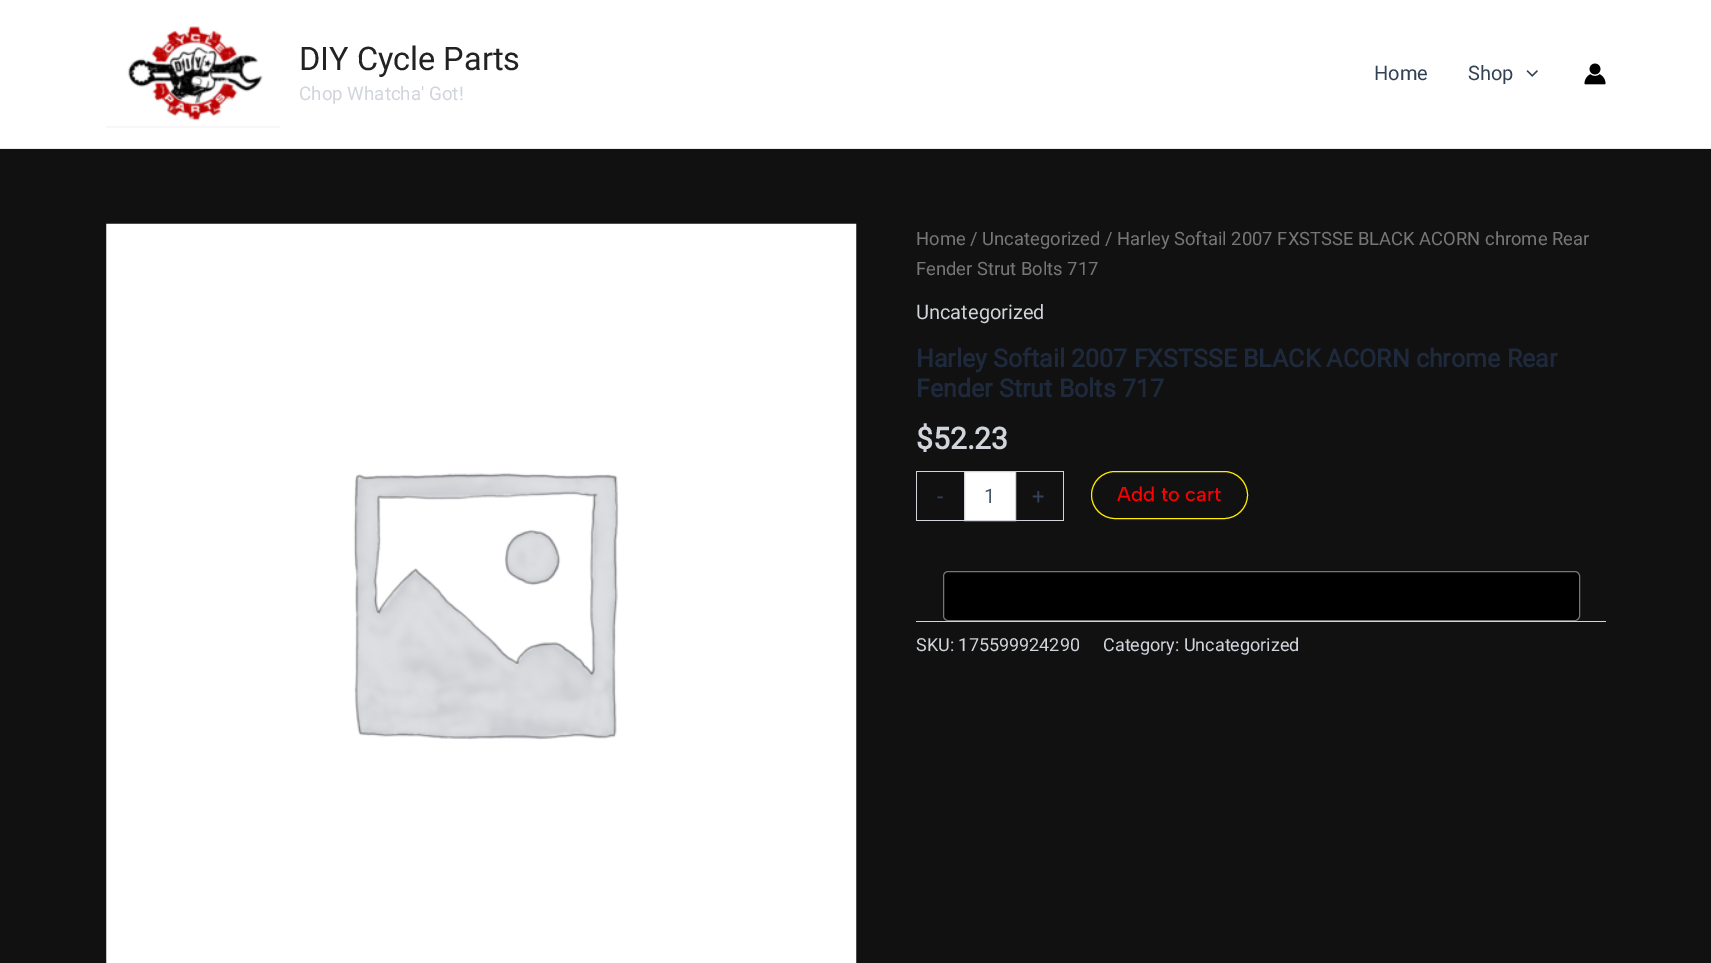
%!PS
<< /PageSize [1711 963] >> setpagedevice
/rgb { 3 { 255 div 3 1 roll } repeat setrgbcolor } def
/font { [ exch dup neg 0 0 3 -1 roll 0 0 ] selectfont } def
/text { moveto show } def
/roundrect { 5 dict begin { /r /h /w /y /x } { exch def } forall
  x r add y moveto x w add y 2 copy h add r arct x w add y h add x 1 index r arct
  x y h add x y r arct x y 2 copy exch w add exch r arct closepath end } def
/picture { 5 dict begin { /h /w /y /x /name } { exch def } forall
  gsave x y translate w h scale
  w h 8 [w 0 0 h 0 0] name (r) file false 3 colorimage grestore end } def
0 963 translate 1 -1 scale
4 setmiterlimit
17 17 17 rgb
0 0 1711 963 rectfill
255 255 255 rgb
0 0 1711 148 rectfill
234 234 234 rgb
0 148 1711 1 rectfill
(img_01.rgb) 106 26 174 102 picture
(img_02.rgb) 1526 70 12 7 picture
(img_03.rgb) 1584 63 22 22 picture
(img_04.rgb) 106 223 751 740 picture
209 213 219 rgb
916 471 48 1 rectfill
916 520 48 1 rectfill
916 471 1 50 rectfill
255 255 255 rgb
964.5 471.5 moveto 51 0 rlineto 0 49 rlineto -51 0 rlineto closepath gsave fill grestore
209 213 219 rgb
stroke
1016 471 48 1 rectfill
1063 471 1 50 rectfill
1016 520 48 1 rectfill
255 238 0 rgb
1091.5 471.5 156 47 23.5 roundrect stroke
0 0 0 rgb
943.5 571.5 636 49 4.5 roundrect gsave fill grestore
117 117 117 rgb
stroke
209 213 219 rgb
916 621 690 1 rectfill
/Roboto-Regular 32.5 font
34 34 34 rgb
(DIY Cycle Parts) 299 70 text
/Roboto-Regular 18.75 font
209 213 219 rgb
(Chop Whatcha' Got!) 299 100 text
/Roboto-Regular 20 font
51 65 85 rgb
(Home) 1374 80 text
(Shop) 1468 80 text
/Roboto-Regular 18.4 font
119 119 119 rgb
(Home / Uncategorized / Harley Softail 2007 FXSTSSE BLACK ACORN chrome Rear) 916 245 text
(Fender Strut Bolts 717) 916 275 text
/Roboto-Regular 20 font
209 213 219 rgb
(Uncategorized) 916 319 text
/Roboto-Bold 25 font
30 41 59 rgb
(Harley Softail 2007 FXSTSSE BLACK ACORN chrome Rear) 916 367 text
(Fender Strut Bolts 717) 916 397 text
/Roboto-Bold 30 font
209 213 219 rgb
($52.23) 916 449 text
/Roboto-Regular 22 font
51 65 85 rgb
(-) 937 504 text
/Roboto-Regular 20 font
71 85 105 rgb
(1) 984 503 text
/Roboto-Regular 22 font
51 65 85 rgb
(+) 1032 504 text
/AlbertSans-Medium 20 font
255 0 0 rgb
(Add to cart) 1117 501 text
/Roboto-Regular 18 font
209 213 219 rgb
(SKU: 175599924290) 916 651 text
(Category: Uncategorized) 1103 651 text
showpage
